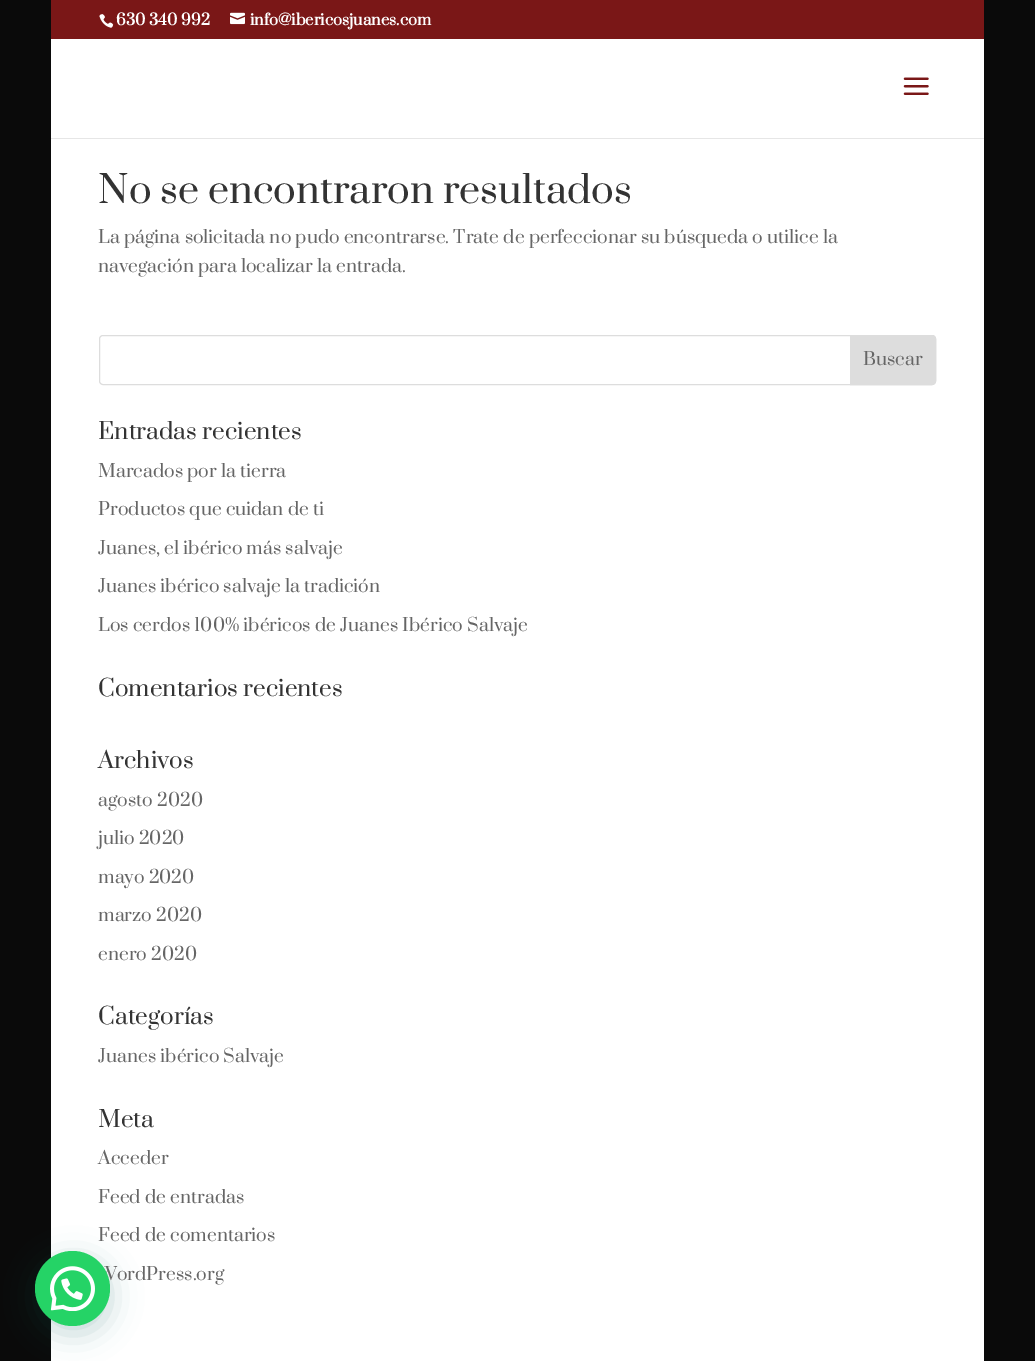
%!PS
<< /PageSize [1035 1361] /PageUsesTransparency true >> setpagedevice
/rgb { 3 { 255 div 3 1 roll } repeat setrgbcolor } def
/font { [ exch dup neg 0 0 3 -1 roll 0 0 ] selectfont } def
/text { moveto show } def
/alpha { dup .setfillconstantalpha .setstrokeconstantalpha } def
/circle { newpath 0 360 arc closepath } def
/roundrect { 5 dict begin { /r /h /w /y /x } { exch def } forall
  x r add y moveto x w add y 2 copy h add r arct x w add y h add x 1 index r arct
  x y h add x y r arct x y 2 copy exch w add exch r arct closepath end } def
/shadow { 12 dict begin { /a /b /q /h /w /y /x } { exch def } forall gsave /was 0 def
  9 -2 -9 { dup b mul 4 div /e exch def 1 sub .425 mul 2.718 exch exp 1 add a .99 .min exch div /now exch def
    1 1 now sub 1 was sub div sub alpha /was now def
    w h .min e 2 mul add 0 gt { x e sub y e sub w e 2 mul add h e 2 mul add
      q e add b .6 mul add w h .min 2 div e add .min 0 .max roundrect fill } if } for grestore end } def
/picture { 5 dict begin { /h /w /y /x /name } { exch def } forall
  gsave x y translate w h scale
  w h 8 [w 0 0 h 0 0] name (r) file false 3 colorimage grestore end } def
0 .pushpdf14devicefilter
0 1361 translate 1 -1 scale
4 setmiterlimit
10 10 10 rgb
0 0 1035 1361 rectfill
255 255 255 rgb
51 139 933 1222 rectfill
7 94 84 rgb
36 1259 75 75 37.5 15 0.24 shadow
122 23 23 rgb
51 0 933 39 rectfill
(img_02.rgb) 99 14 15 14 picture
(img_03.rgb) 230 12 15 13 picture
230 230 230 rgb
51 39 moveto 0 100 rlineto 933 0 rlineto 0 -100 rlineto 0 99 rlineto -933 0 rlineto closepath fill
255 255 255 rgb
51 39 933 99 rectfill
(img_04.rgb) 903 77 26 18 picture
221 221 221 rgb
99.5 335.5 836 49 3.5 roundrect stroke
850.5 335.5 moveto 81.5 0 rlineto 2 0 3.5 1.5 3.5 3.5 rcurveto 0 42 rlineto 0 2 -1.5 3.5 -3.5 3.5 rcurveto -81.5 0 rlineto closepath gsave fill grestore
stroke
/Prata-Bold 15 font
255 255 255 rgb
(630 340 992) 116 25 text
(info@ibericosjuanes.com) 250 25 text
/Prata-Regular 37.5 font
51 51 51 rgb
(No se encontraron resultados) 98 203 text
/Prata-Regular 17.5 font
102 102 102 rgb
(La página solicitada no pudo encontrarse. Trate de perfeccionar su búsqueda o utilice la) 98 243 text
(navegación para localizar la entrada.) 98 272 text
(Buscar) 863 365 text
/Prata-Regular 22.5 font
51 51 51 rgb
(Entradas recientes) 98 439 text
/Prata-Regular 17.5 font
102 102 102 rgb
(Marcados por la tierra) 98 477 text
(Productos que cuidan de ti) 98 515 text
(Juanes, el ibérico más salvaje) 98 554 text
(Juanes ibérico salvaje la tradición) 98 592 text
(Los cerdos 100% ibéricos de Juanes Ibérico Salvaje) 98 631 text
/Prata-Regular 22.5 font
51 51 51 rgb
(Comentarios recientes) 98 696 text
(Archivos) 98 768 text
/Prata-Regular 17.5 font
102 102 102 rgb
(agosto 2020) 98 806 text
(julio 2020) 98 844 text
(mayo 2020) 98 883 text
(marzo 2020) 98 921 text
(enero 2020) 98 960 text
/Prata-Regular 22.5 font
51 51 51 rgb
(Categorías) 98 1024 text
/Prata-Regular 17.5 font
102 102 102 rgb
(Juanes ibérico Salvaje) 98 1062 text
/Prata-Regular 22.5 font
51 51 51 rgb
(Meta) 98 1127 text
/Prata-Regular 17.5 font
102 102 102 rgb
(Acceder) 98 1164 text
(Feed de entradas) 98 1203 text
(Feed de comentarios) 98 1241 text
(WordPress.org) 98 1280 text
37 211 102 rgb
72.5 1288.5 37.5 circle fill
(img_01.rgb) 50 1266 45 45 picture
.poppdf14devicefilter showpage
